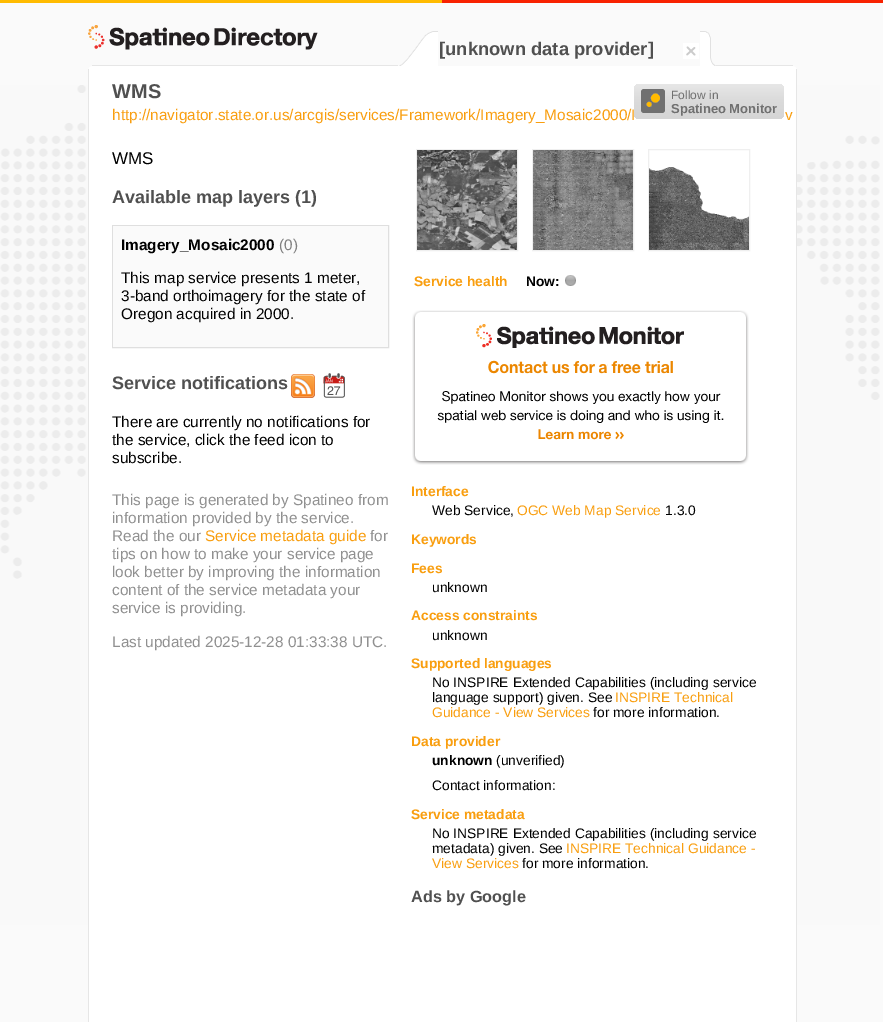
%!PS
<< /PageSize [883 1022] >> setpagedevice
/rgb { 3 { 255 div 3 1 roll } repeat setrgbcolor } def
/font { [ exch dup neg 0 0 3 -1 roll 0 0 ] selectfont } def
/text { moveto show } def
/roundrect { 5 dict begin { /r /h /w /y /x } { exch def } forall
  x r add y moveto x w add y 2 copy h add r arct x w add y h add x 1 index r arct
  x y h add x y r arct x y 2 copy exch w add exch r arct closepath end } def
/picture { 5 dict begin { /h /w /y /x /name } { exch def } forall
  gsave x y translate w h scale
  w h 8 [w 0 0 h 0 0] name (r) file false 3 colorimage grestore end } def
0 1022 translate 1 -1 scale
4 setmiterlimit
250 250 250 rgb
0 0 883 1022 rectfill
255 187 0 rgb
0 0 442 3 rectfill
248 34 0 rgb
442 0 441 3 rectfill
(img_01.rgb) 0 85 880 840 picture
(img_02.rgb) 88 25 230 25 picture
(img_03.rgb) 399 31 39 35 picture
(img_04.rgb) 683 43 16 16 picture
(img_05.rgb) 700 31 16 35 picture
230 230 230 rgb
92 65 306 1 rectfill
716 65 77 1 rectfill
255 255 255 rgb
93 66 moveto 699 0 rlineto 3 0 5 2 5 5 rcurveto 0 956 rlineto -709 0 rlineto 0 -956 rlineto 0 -3 2 -5 5 -5 rcurveto closepath fill
230 230 230 rgb
796 69 1 953 rectfill
88 69 1 953 rectfill
223 223 223 rgb
112.5 225.5 276 122 rectstroke
250 250 250 rgb
113 226 275 121 rectfill
(img_06.rgb) 291 374 24 24 picture
(img_07.rgb) 323 373 22 25 picture
239 239 239 rgb
416.5 149.5 101 101 rectstroke
532.5 149.5 101 101 rectstroke
648.5 149.5 101 101 rectstroke
(img_08.rgb) 417 150 100 100 picture
(img_09.rgb) 533 150 100 100 picture
(img_10.rgb) 649 167 100 83 picture
(img_11.rgb) 565 275 11 11 picture
(img_12.rgb) 412 310 337 155 picture
/LiberationSans-Bold 18.4 font
80 80 80 rgb
([unknown data provider]) 439 55 text
/LiberationSans-Bold 20 font
(WMS) 112 98 text
/LiberationSans-Regular 15.35 font
249 158 15 rgb
(http://navigator.state.or.us/arcgis/services/Framework/Imagery_Mosaic2000/I) 112 120 text
(v) 785 120 text
/LiberationSans-Regular 17 font
0 0 0 rgb
(WMS) 112 164 text
/LiberationSans-Bold 18 font
80 80 80 rgb
(Available map layers \(1\)) 112 203 text
/LiberationSans-Bold 15.35 font
0 0 0 rgb
(Imagery_Mosaic2000) 121 250 text
/LiberationSans-Regular 15.35 font
128 128 128 rgb
(\(0\)) 279 250 text
0 0 0 rgb
(This map service presents 1 meter,) 121 283 text
(3-band orthoimagery for the state of) 121 301 text
(Oregon acquired in 2000.) 121 319 text
/LiberationSans-Bold 18 font
80 80 80 rgb
(Service notifications) 112 389 text
/LiberationSans-Regular 15.35 font
0 0 0 rgb
(There are currently no notifications for) 112 427 text
(the service, click the feed icon to) 112 445 text
(subscribe.) 112 463 text
144 144 144 rgb
(This page is generated by Spatineo from) 112 505 text
(information provided by the service.) 112 523 text
(Read the our) 112 541 text
249 158 15 rgb
(Service metadata guide) 205 541 text
144 144 144 rgb
(for) 370 541 text
(tips on how to make your service page) 112 559 text
(look better by improving the information) 112 577 text
(content of the service metadata your) 112 595 text
(service is providing.) 112 613 text
(Last updated 2025-12-28 01:33:38 UTC.) 112 647 text
/LiberationSans-Bold 13.8 font
249 158 15 rgb
(Service health) 414 286 text
0 0 0 rgb
(Now:) 526 286 text
249 158 15 rgb
(Interface) 411 496 text
/LiberationSans-Regular 13.8 font
0 0 0 rgb
(Web Service,) 432 515 text
249 158 15 rgb
(OGC Web Map Service) 517 515 text
0 0 0 rgb
(1.3.0) 665 515 text
/LiberationSans-Bold 13.8 font
249 158 15 rgb
(Keywords) 411 544 text
(Fees) 411 573 text
/LiberationSans-Regular 13.8 font
0 0 0 rgb
(unknown) 432 592 text
/LiberationSans-Bold 13.8 font
249 158 15 rgb
(Access constraints) 411 620 text
/LiberationSans-Regular 13.8 font
0 0 0 rgb
(unknown) 432 640 text
/LiberationSans-Bold 13.8 font
249 158 15 rgb
(Supported languages) 411 668 text
/LiberationSans-Regular 13.8 font
0 0 0 rgb
(No INSPIRE Extended Capabilities \(including service) 432 687 text
(language support\) given. See) 432 702 text
249 158 15 rgb
(INSPIRE Technical) 615 702 text
(Guidance - View Services) 432 717 text
0 0 0 rgb
(for more information.) 593 717 text
/LiberationSans-Bold 13.8 font
249 158 15 rgb
(Data provider) 411 746 text
0 0 0 rgb
(unknown) 432 765 text
/LiberationSans-Regular 13.8 font
(\(unverified\)) 496 765 text
(Contact information:) 432 790 text
/LiberationSans-Bold 13.8 font
249 158 15 rgb
(Service metadata) 411 819 text
/LiberationSans-Regular 13.8 font
0 0 0 rgb
(No INSPIRE Extended Capabilities \(including service) 432 838 text
(metadata\) given. See) 432 853 text
249 158 15 rgb
(INSPIRE Technical Guidance -) 566 853 text
(View Services) 432 868 text
0 0 0 rgb
(for more information.) 522 868 text
/LiberationSans-Bold 16.25 font
80 80 80 rgb
(Ads by Google) 411 902 text
gsave 634 84 150 35 6 roundrect clip newpath
<< /ShadingType 2 /ColorSpace /DeviceRGB /Coords [709 84 709 119] /Extend [true true] /Function << /FunctionType 3 /Domain [0 1] /Functions [<< /FunctionType 2 /Domain [0 1] /C0 [0.906 0.906 0.906] /C1 [0.855 0.855 0.855] /N 1 >> << /FunctionType 2 /Domain [0 1] /C0 [0.855 0.855 0.855] /C1 [0.835 0.835 0.835] /N 1 >>] /Bounds [0.5] /Encode [0 1 0 1] >> >> shfill grestore
112 112 112 rgb
641 89 24 24 3 roundrect fill
(img_13.rgb) 646 93 14 14 picture
/LiberationSans-Regular 12 font
(Follow in) 671 99 text
/LiberationSans-Bold 13 font
(Spatineo Monitor) 671 113 text
showpage
